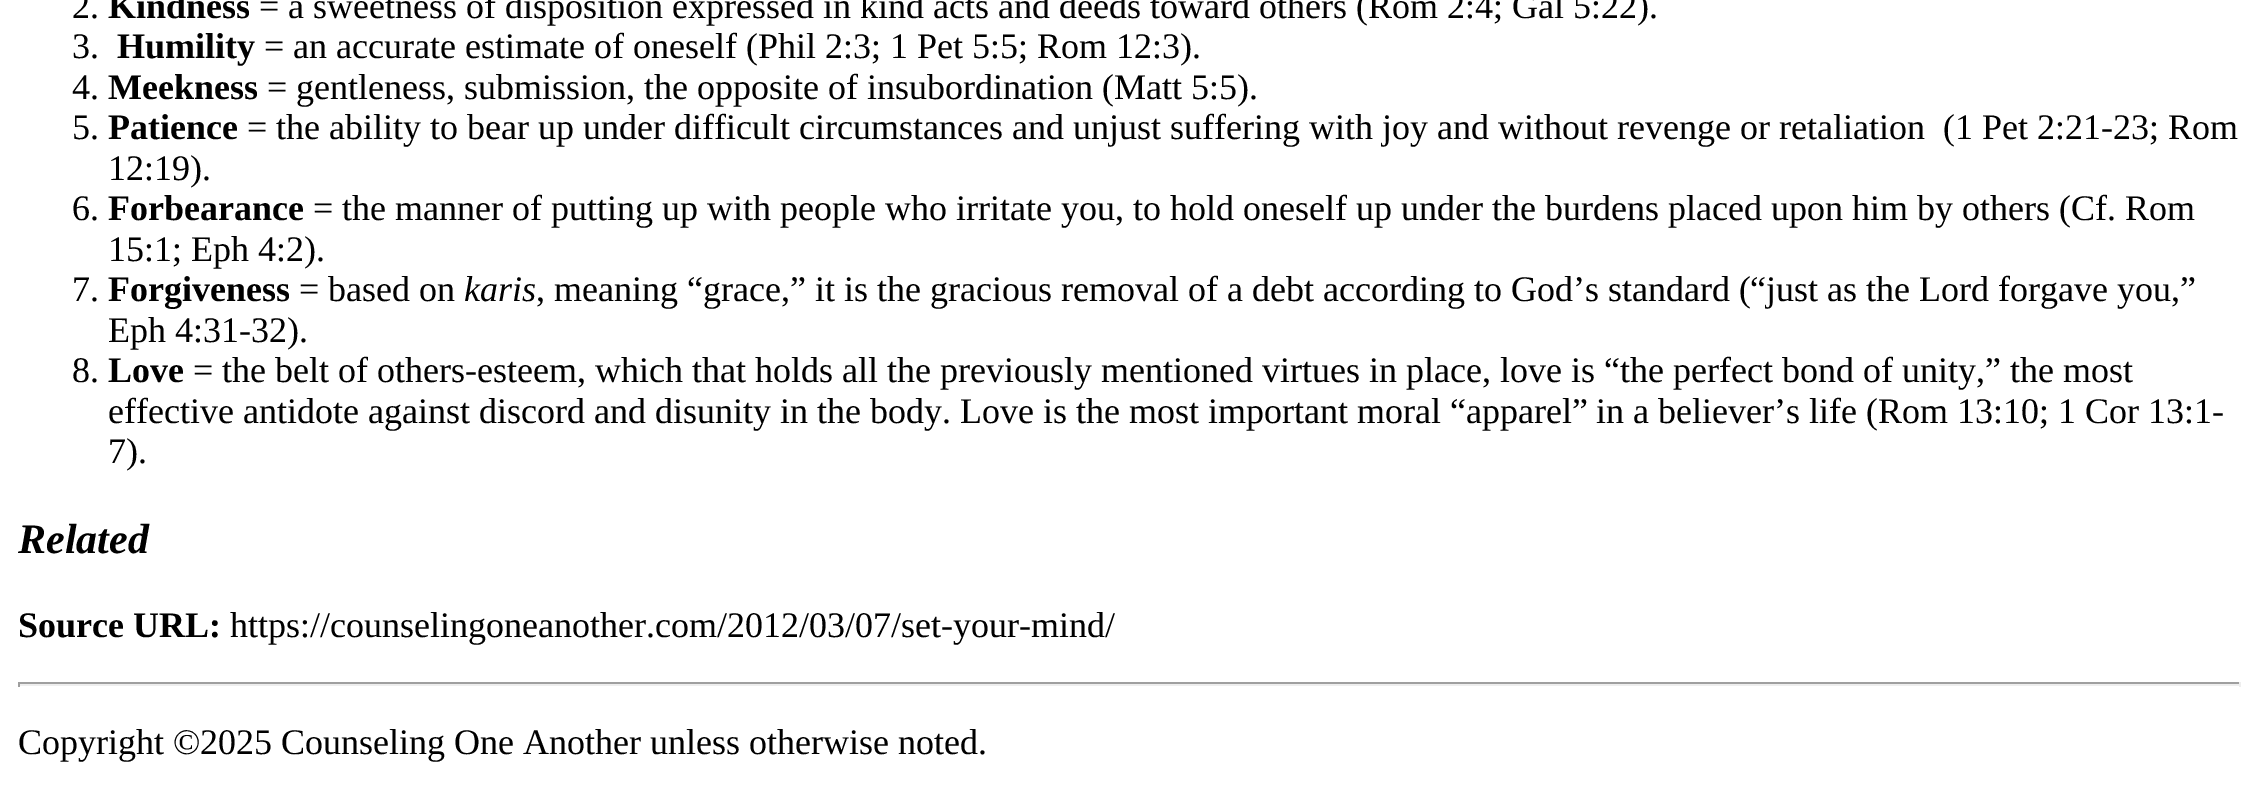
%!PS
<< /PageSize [2258 797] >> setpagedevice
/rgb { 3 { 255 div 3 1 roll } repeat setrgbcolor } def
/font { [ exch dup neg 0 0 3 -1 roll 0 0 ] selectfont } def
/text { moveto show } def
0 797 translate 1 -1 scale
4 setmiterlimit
255 255 255 rgb
0 0 2258 797 rectfill
159 159 159 rgb
18 682 2223 2 rectfill
238 238 238 rgb
2239 682 2 5 rectfill
18 684 2223 2 rectfill
159 159 159 rgb
18 682 2 5 rectfill
/LiberationSerif-Regular 36 font
0 0 0 rgb
(2.) 72 18 text
/LiberationSerif-Bold 36 font
(Kindness) 108 18 text
/LiberationSerif-Regular 36 font
(= a sweetness of disposition expressed in kind acts and deeds toward others \(Rom 2:4; Gal 5:22\).) 259 18 text
(3.) 72 58 text
/LiberationSerif-Bold 36 font
(Humility) 117 58 text
/LiberationSerif-Regular 36 font
(= an accurate estimate of oneself \(Phil 2:3; 1 Pet 5:5; Rom 12:3\).) 264 58 text
(4.) 72 99 text
/LiberationSerif-Bold 36 font
(Meekness) 108 99 text
/LiberationSerif-Regular 36 font
(= gentleness, submission, the opposite of insubordination \(Matt 5:5\).) 267 99 text
(5.) 72 139 text
/LiberationSerif-Bold 36 font
(Patience) 108 139 text
/LiberationSerif-Regular 36 font
(= the ability to bear up under difficult circumstances and unjust suffering with joy and without revenge or retaliation  \(1 Pet 2:21-23; Rom) 247 139 text
(12:19\).) 108 180 text
(6.) 72 220 text
/LiberationSerif-Bold 36 font
(Forbearance) 108 220 text
/LiberationSerif-Regular 36 font
(= the manner of putting up with people who irritate you, to hold oneself up under the burdens placed upon him by others \(Cf. Rom) 313 220 text
(15:1; Eph 4:2\).) 108 261 text
(7.) 72 301 text
/LiberationSerif-Bold 36 font
(Forgiveness) 108 301 text
/LiberationSerif-Regular 36 font
(= based on) 299 301 text
/LiberationSerif-Italic 36 font
(karis) 464 301 text
/LiberationSerif-Regular 36 font
(, meaning “grace,” it is the gracious removal of a debt according to God’s standard \(“just as the Lord forgave you,”) 536 301 text
(Eph 4:31-32\).) 108 342 text
(8.) 72 382 text
/LiberationSerif-Bold 36 font
(Love) 108 382 text
/LiberationSerif-Regular 36 font
(= the belt of others-esteem, which that holds all the previously mentioned virtues in place, love is “the perfect bond of unity,” the most) 193 382 text
(effective antidote against discord and disunity in the body. Love is the most important moral “apparel” in a believer’s life \(Rom 13:10; 1 Cor 13:1-) 108 423 text
(7\).) 108 463 text
/LiberationSerif-BoldItalic 42 font
(Related) 18 553 text
/LiberationSerif-Bold 36 font
(Source URL:) 18 637 text
/LiberationSerif-Regular 36 font
(https://counselingoneanother.com/2012/03/07/set-your-mind/) 230 637 text
(Copyright ©2025 Counseling One Another unless otherwise noted.) 18 754 text
showpage
